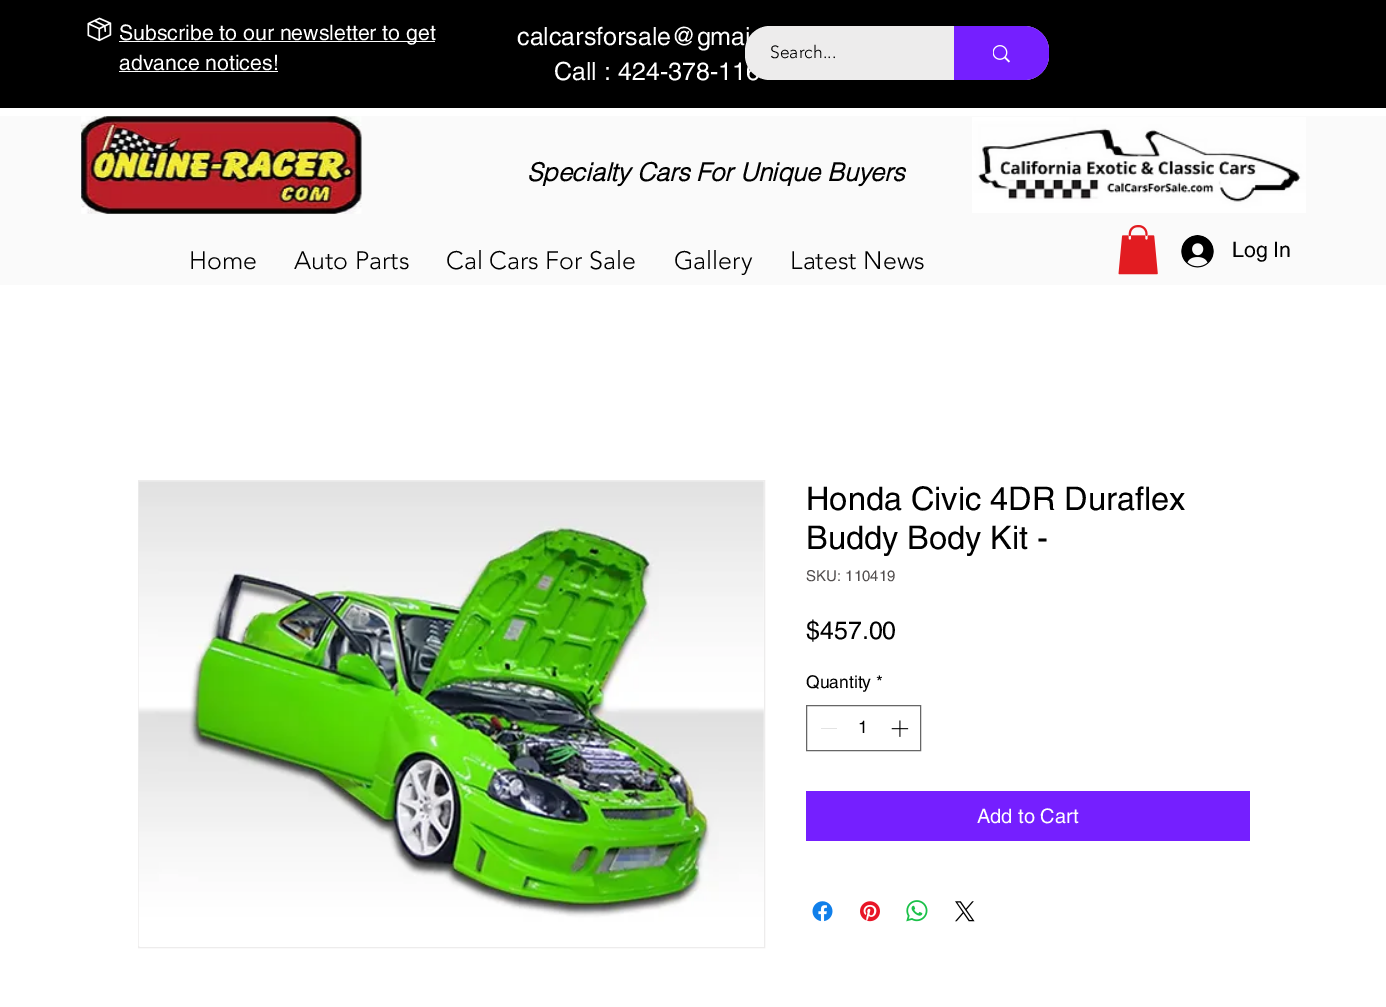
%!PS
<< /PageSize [1386 1007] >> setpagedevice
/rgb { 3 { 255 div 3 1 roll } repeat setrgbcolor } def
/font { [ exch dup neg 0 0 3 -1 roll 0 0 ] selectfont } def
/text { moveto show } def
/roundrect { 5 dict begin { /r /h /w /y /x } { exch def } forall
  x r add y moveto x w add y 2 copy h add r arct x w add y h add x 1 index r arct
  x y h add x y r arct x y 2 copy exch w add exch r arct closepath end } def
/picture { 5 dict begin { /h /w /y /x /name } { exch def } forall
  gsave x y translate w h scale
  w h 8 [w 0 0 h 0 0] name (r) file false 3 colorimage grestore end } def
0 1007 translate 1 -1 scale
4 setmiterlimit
255 255 255 rgb
0 0 1386 1007 rectfill
0 0 0 rgb
0 0 1386 108 rectfill
(img_01.rgb) 87 17 25 25 picture
255 255 255 rgb
119 41 316 1 rectfill
119 71 159 1 rectfill
250 250 250 rgb
0 116 1386 169 rectfill
(img_03.rgb) 81 116 281 98 picture
(img_04.rgb) 972 117 334 96 picture
(img_05.rgb) 1118 225 40 50 picture
(img_06.rgb) 1181 235 33 33 picture
237 236 236 rgb
138.5 480.5 626 467 rectstroke
(img_07.rgb) 138 481 626 465 picture
102 102 102 rgb
806.5 705.5 114 45 rectstroke
227 227 227 rgb
821 728 16 1 rectfill
(img_08.rgb) 891 720 18 17 picture
117 31 255 rgb
806 791 444 50 rectfill
(img_09.rgb) 812 901 21 21 picture
(img_10.rgb) 860 901 20 21 picture
(img_11.rgb) 906 900 22 22 picture
(img_12.rgb) 955 901 20 21 picture
/helvetica-Regular 21.25 font
255 255 255 rgb
(Subscribe to our newsletter to get) 119 40 text
(advance notices!) 119 70 text
/helvetica-Regular 25 font
(calcarsforsale@gmai) 517 45 text
(Call : 424-378-116) 554 80 text
237 236 236 rgb
745 26 304 54 25 roundrect fill
/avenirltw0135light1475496-Light 17.5 font
0 0 0 rgb
(Search...) 770 58 text
117 31 255 rgb
954 26 moveto 70 0 rlineto 14 0 25 11 25 25 rcurveto 0 4 rlineto 0 14 -11 25 -25 25 rcurveto -70 0 rlineto closepath fill
(img_02.rgb) 993 45 17 18 picture
/helvetica-BoldItalic 25 font
0 0 0 rgb
(Specialty Cars For Unique Buyers) 527 181 text
/avenirltw0135light1475496-Light 25 font
(Home) 189 269 text
(Auto Parts) 294 269 text
(Cal Cars For Sale) 446 269 text
(Gallery) 674 269 text
(Latest News) 790 269 text
/helvetica-Regular 21.25 font
(Log In) 1232 257 text
/helvetica-Regular 32.5 font
(Honda Civic 4DR Duraflex) 806 510 text
(Buddy Body Kit -) 806 549 text
/helvetica-Regular 15 font
82 78 78 rgb
(SKU: 110419) 806 581 text
/helvetica-Regular 25 font
0 0 0 rgb
($457.00) 806 639 text
/helvetica-Regular 17.5 font
(Quantity *) 806 688 text
(1) 858 733 text
/helvetica-Regular 20 font
255 255 255 rgb
(Add to Cart) 977 823 text
showpage
